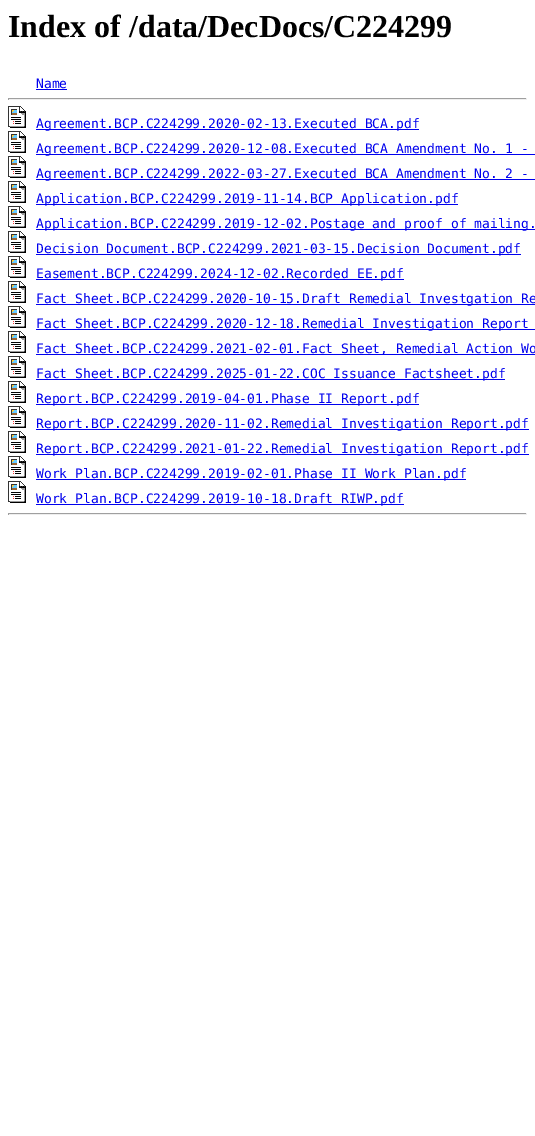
%!PS
<< /PageSize [535 1136] >> setpagedevice
/rgb { 3 { 255 div 3 1 roll } repeat setrgbcolor } def
/font { [ exch dup neg 0 0 3 -1 roll 0 0 ] selectfont } def
/text { moveto show } def
/picture { 5 dict begin { /h /w /y /x /name } { exch def } forall
  gsave x y translate w h scale
  w h 8 [w 0 0 h 0 0] name (r) file false 3 colorimage grestore end } def
0 1136 translate 1 -1 scale
4 setmiterlimit
255 255 255 rgb
0 0 535 1136 rectfill
0 0 238 rgb
36 89 31 1 rectfill
159 159 159 rgb
8 98 519 1 rectfill
238 238 238 rgb
526 98 1 2 rectfill
8 99 519 1 rectfill
159 159 159 rgb
8 98 1 2 rectfill
(img_01.rgb) 8 106 18 22 picture
0 0 238 rgb
36 129 383 1 rectfill
(img_01.rgb) 8 131 18 22 picture
36 154 499 1 rectfill
(img_01.rgb) 8 156 18 22 picture
36 179 499 1 rectfill
(img_01.rgb) 8 181 18 22 picture
36 204 422 1 rectfill
(img_01.rgb) 8 206 18 22 picture
36 229 499 1 rectfill
(img_01.rgb) 8 231 18 22 picture
36 254 485 1 rectfill
(img_01.rgb) 8 256 18 22 picture
36 279 368 1 rectfill
(img_01.rgb) 8 281 18 22 picture
36 304 499 1 rectfill
(img_01.rgb) 8 306 18 22 picture
36 329 499 1 rectfill
(img_01.rgb) 8 331 18 22 picture
36 354 499 1 rectfill
(img_01.rgb) 8 356 18 22 picture
36 379 469 1 rectfill
(img_01.rgb) 8 381 18 22 picture
36 404 383 1 rectfill
(img_01.rgb) 8 406 18 22 picture
36 429 493 1 rectfill
(img_01.rgb) 8 431 18 22 picture
36 454 493 1 rectfill
(img_01.rgb) 8 456 18 22 picture
36 479 430 1 rectfill
(img_01.rgb) 8 481 18 22 picture
36 504 368 1 rectfill
159 159 159 rgb
8 513 519 1 rectfill
238 238 238 rgb
526 513 1 2 rectfill
8 514 519 1 rectfill
159 159 159 rgb
8 513 1 2 rectfill
/LiberationSerif-Bold 32 font
0 0 0 rgb
(Index of /data/DecDocs/C224299) 8 37 text
/DejaVuSansMono-Regular 13 font
0 0 238 rgb
(Name) 36 88 text
(Agreement.BCP.C224299.2020-02-13.Executed BCA.pdf) 36 128 text
(Agreement.BCP.C224299.2020-12-08.Executed BCA Amendment No. 1 -) 36 153 text
(Agreement.BCP.C224299.2022-03-27.Executed BCA Amendment No. 2 -) 36 178 text
(Application.BCP.C224299.2019-11-14.BCP Application.pdf) 36 203 text
(Application.BCP.C224299.2019-12-02.Postage and proof of mailing.) 36 228 text
(Decision Document.BCP.C224299.2021-03-15.Decision Document.pdf) 36 253 text
(Easement.BCP.C224299.2024-12-02.Recorded EE.pdf) 36 278 text
(Fact Sheet.BCP.C224299.2020-10-15.Draft Remedial Investgation Re) 36 303 text
(Fact Sheet.BCP.C224299.2020-12-18.Remedial Investigation Report) 36 328 text
(Fact Sheet.BCP.C224299.2021-02-01.Fact Sheet, Remedial Action Wo) 36 353 text
(Fact Sheet.BCP.C224299.2025-01-22.COC Issuance Factsheet.pdf) 36 378 text
(Report.BCP.C224299.2019-04-01.Phase II Report.pdf) 36 403 text
(Report.BCP.C224299.2020-11-02.Remedial Investigation Report.pdf) 36 428 text
(Report.BCP.C224299.2021-01-22.Remedial Investigation Report.pdf) 36 453 text
(Work Plan.BCP.C224299.2019-02-01.Phase II Work Plan.pdf) 36 478 text
(Work Plan.BCP.C224299.2019-10-18.Draft RIWP.pdf) 36 503 text
showpage
